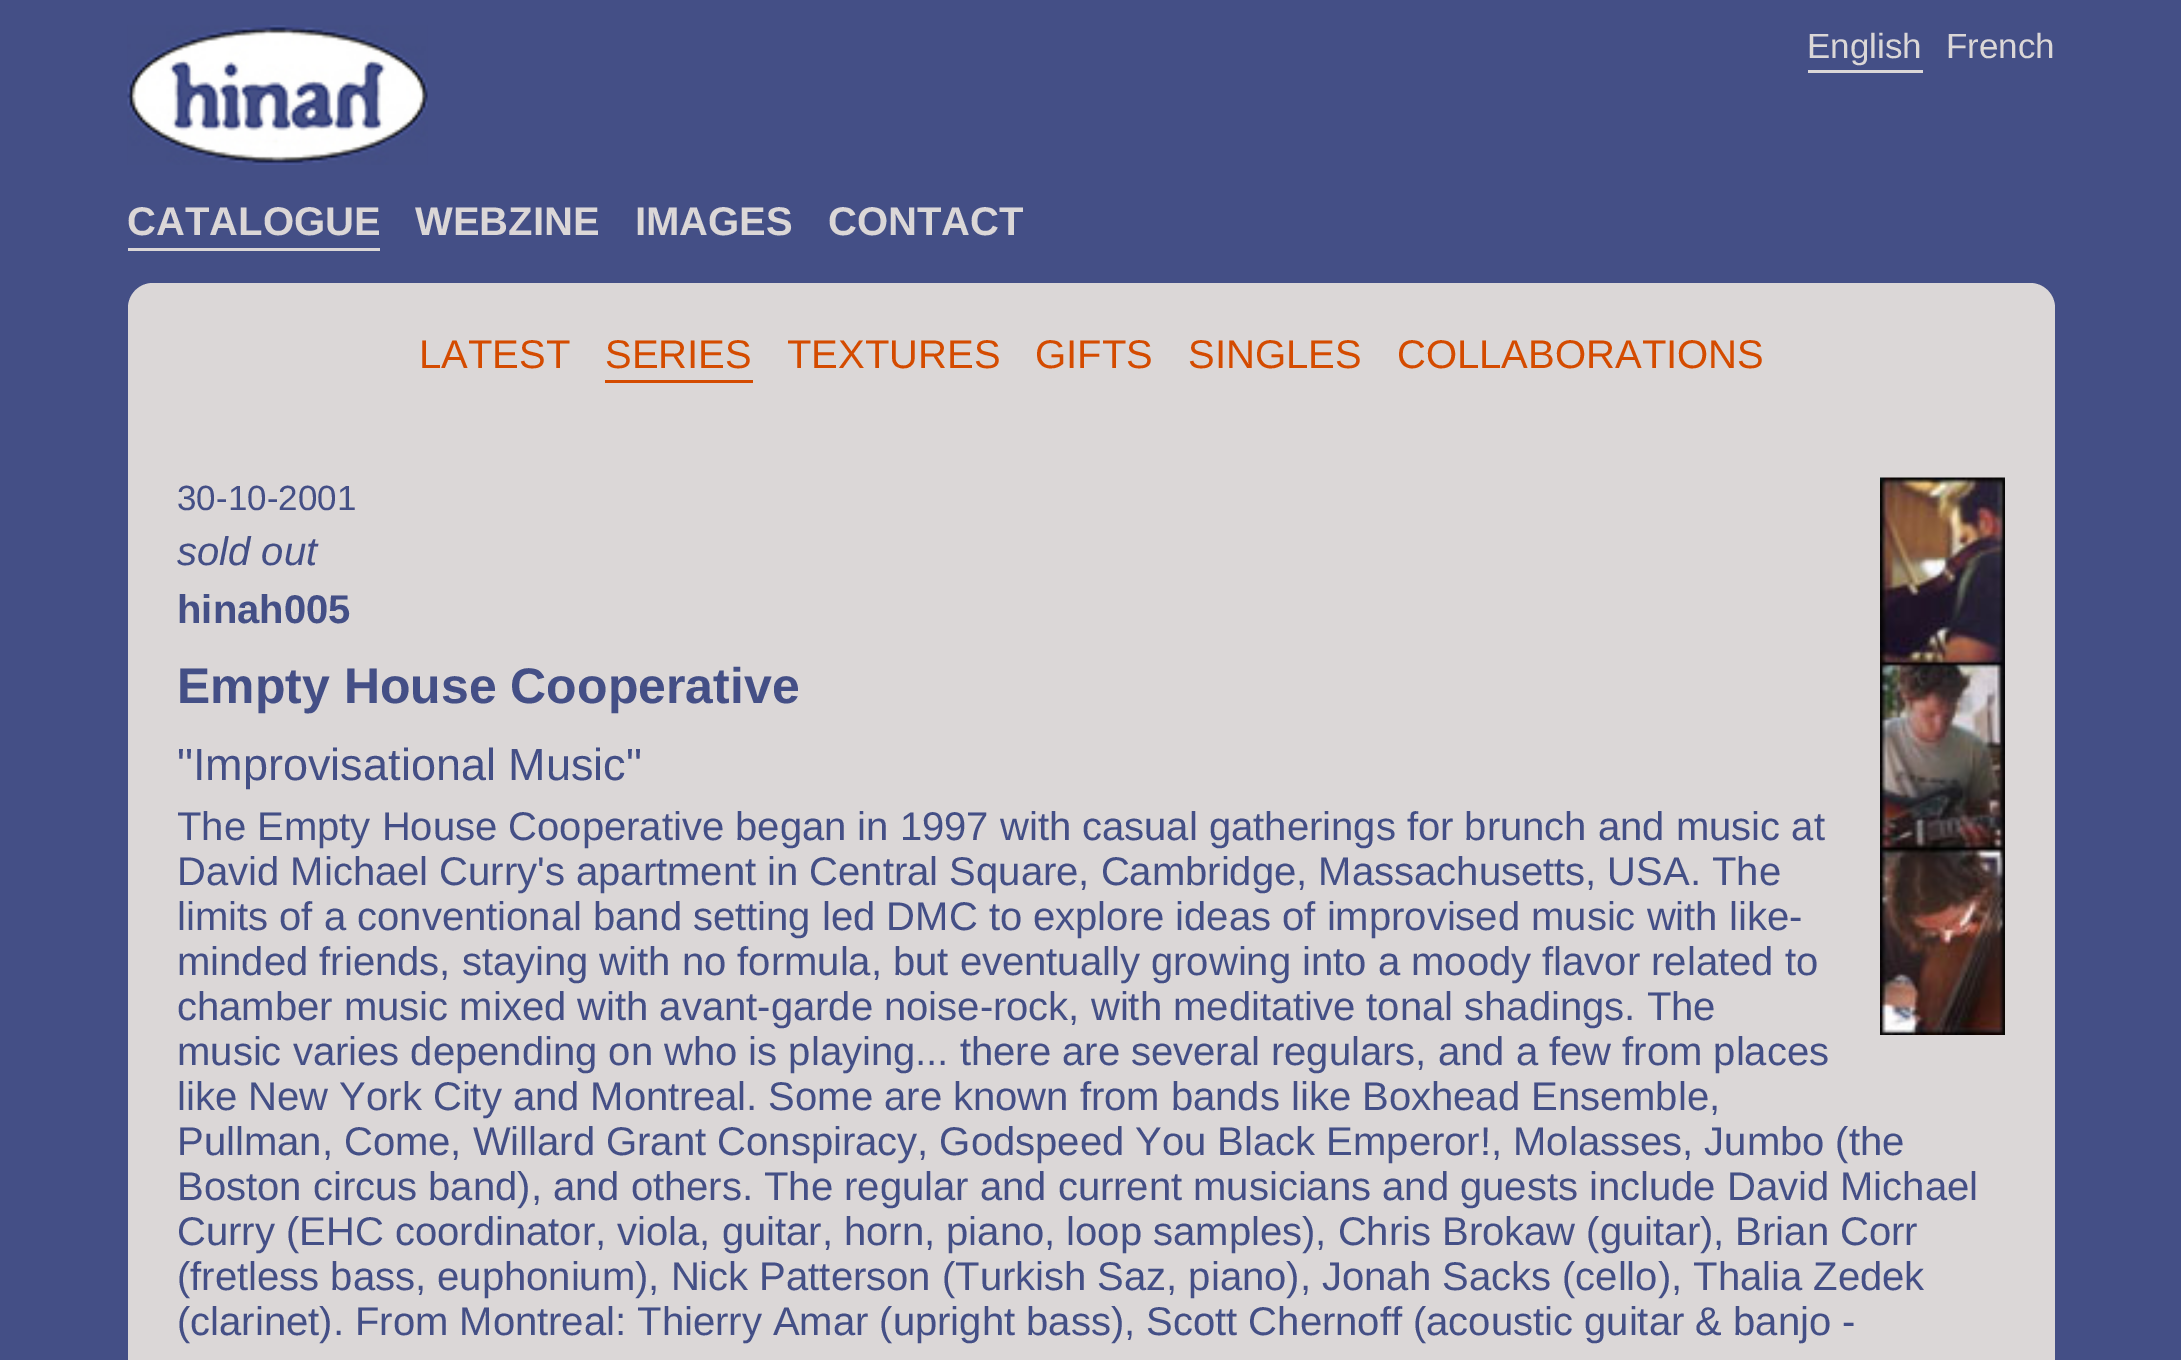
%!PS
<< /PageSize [2181 1360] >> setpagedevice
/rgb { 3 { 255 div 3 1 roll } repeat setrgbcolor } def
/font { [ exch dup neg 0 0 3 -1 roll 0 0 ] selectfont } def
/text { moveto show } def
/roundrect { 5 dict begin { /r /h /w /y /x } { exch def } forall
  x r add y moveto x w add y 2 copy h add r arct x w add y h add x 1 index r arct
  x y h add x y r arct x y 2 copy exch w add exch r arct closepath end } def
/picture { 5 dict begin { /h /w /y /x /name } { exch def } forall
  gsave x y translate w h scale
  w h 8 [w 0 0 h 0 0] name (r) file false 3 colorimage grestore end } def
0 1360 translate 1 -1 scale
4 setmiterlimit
68 79 134 rgb
0 0 2181 1360 rectfill
(img_01.rgb) 127 25 301 140 picture
219 215 215 rgb
1808 70 115 3 rectfill
128 248 252 3 rectfill
128 283 1927 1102 25 roundrect fill
212 75 0 rgb
605 380 148 3 rectfill
(img_02.rgb) 1880 477 125 558 picture
/LiberationSans-Regular 35 font
219 215 215 rgb
(English) 1807 58 text
(French) 1946 58 text
/LiberationSans-Bold 40 font
(CATALOGUE) 127 235 text
(WEBZINE) 415 235 text
(IMAGES) 635 235 text
(CONTACT) 828 235 text
/LiberationSans-Regular 40 font
212 75 0 rgb
(LATEST) 419 368 text
(SERIES) 605 368 text
(TEXTURES) 787 368 text
(GIFTS) 1035 368 text
(SINGLES) 1188 368 text
(COLLABORATIONS) 1397 368 text
/LiberationSans-Regular 35 font
68 79 134 rgb
(30-10-2001) 177 510 text
/LiberationSans-Italic 40 font
(sold out) 177 565 text
/LiberationSans-Bold 40 font
(hinah005) 177 623 text
/LiberationSans-Bold 50 font
(Empty House Cooperative) 177 703 text
/LiberationSans-Regular 45 font
("Improvisational Music") 177 780 text
/LiberationSans-Regular 40 font
(The Empty House Cooperative began in 1997 with casual gatherings for brunch and music at) 177 840 text
(David Michael Curry's apartment in Central Square, Cambridge, Massachusetts, USA. The) 177 885 text
(limits of a conventional band setting led DMC to explore ideas of improvised music with like-) 177 930 text
(minded friends, staying with no formula, but eventually growing into a moody flavor related to) 177 975 text
(chamber music mixed with avant-garde noise-rock, with meditative tonal shadings. The) 177 1020 text
(music varies depending on who is playing... there are several regulars, and a few from places) 177 1065 text
(like New York City and Montreal. Some are known from bands like Boxhead Ensemble,) 177 1110 text
(Pullman, Come, Willard Grant Conspiracy, Godspeed You Black Emperor!, Molasses, Jumbo \(the) 177 1155 text
(Boston circus band\), and others. The regular and current musicians and guests include David Michael) 177 1200 text
(Curry \(EHC coordinator, viola, guitar, horn, piano, loop samples\), Chris Brokaw \(guitar\), Brian Corr) 177 1245 text
(\(fretless bass, euphonium\), Nick Patterson \(Turkish Saz, piano\), Jonah Sacks \(cello\), Thalia Zedek) 177 1290 text
(\(clarinet\). From Montreal: Thierry Amar \(upright bass\), Scott Chernoff \(acoustic guitar & banjo -) 177 1335 text
showpage
